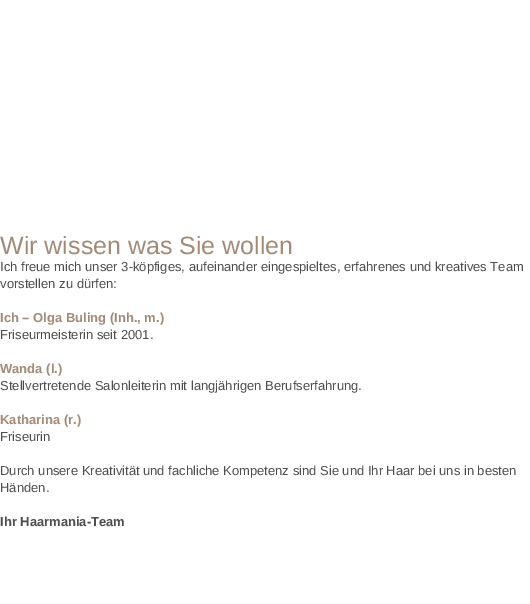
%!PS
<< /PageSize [530 604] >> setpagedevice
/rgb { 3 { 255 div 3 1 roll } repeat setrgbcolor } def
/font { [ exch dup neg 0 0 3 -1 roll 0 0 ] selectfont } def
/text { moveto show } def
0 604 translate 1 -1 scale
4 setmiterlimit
255 255 255 rgb
0 0 530 604 rectfill
/LiberationSans-Regular 25 font
163 137 119 rgb
(Wir wissen was Sie wollen) 0 254 text
/LiberationSans-Regular 13 font
77 77 77 rgb
(Ich freue mich unser 3-köpfiges, aufeinander eingespieltes, erfahrenes und kreatives Team) 0 271 text
(vorstellen zu dürfen:) 0 288 text
/LiberationSans-Bold 13 font
163 137 119 rgb
(Ich – Olga Buling \(Inh., m.\)) 0 322 text
/LiberationSans-Regular 13 font
77 77 77 rgb
(Friseurmeisterin seit 2001.) 0 339 text
/LiberationSans-Bold 13 font
163 137 119 rgb
(Wanda \(l.\)) 0 373 text
/LiberationSans-Regular 13 font
77 77 77 rgb
(Stellvertretende Salonleiterin mit langjährigen Berufserfahrung.) 0 390 text
/LiberationSans-Bold 13 font
163 137 119 rgb
(Katharina \(r.\)) 0 424 text
/LiberationSans-Regular 13 font
77 77 77 rgb
(Friseurin) 0 441 text
(Durch unsere Kreativität und fachliche Kompetenz sind Sie und Ihr Haar bei uns in besten) 0 475 text
(Händen.) 0 492 text
/LiberationSans-Bold 13 font
(Ihr Haarmania-Team) 0 526 text
showpage
